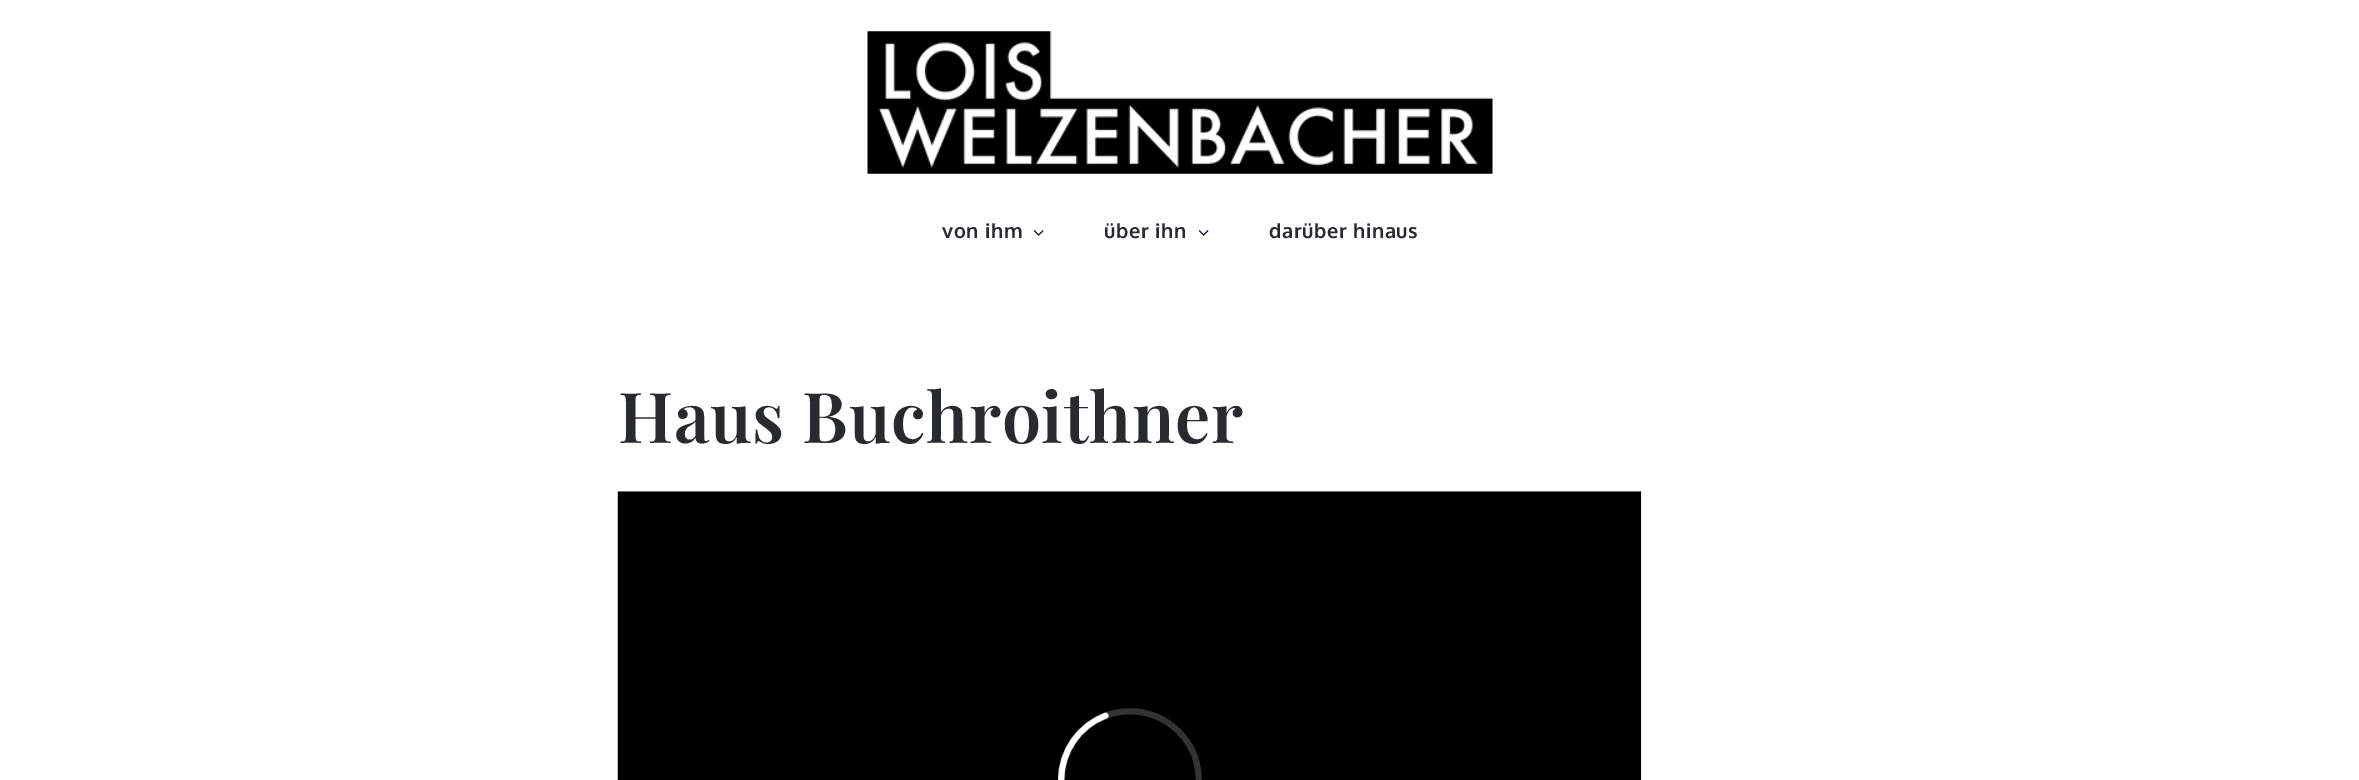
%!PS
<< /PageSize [2359 780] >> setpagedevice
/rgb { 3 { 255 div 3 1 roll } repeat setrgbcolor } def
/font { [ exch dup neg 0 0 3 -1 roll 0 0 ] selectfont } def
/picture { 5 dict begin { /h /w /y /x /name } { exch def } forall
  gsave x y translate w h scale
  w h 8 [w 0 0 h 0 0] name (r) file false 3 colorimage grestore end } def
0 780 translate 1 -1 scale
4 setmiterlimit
255 255 255 rgb
0 0 2359 780 rectfill
(img_01.rgb) 867 31 626 143 picture
(img_02.rgb) 1033 230 11 6 picture
(img_02.rgb) 1198 230 11 6 picture
(img_03.rgb) 617 491 1025 289 picture
/Oxygen-Bold 20 font
39 43 47 rgb
942 238 moveto 0.6 0 (von ihm) ashow
1104 238 moveto 0.6 0 (über ihn) ashow
1269 238 moveto 0.6 0 (darüber hinaus) ashow
/PlayfairDisplay-SemiBold 70 font
618 443 moveto 0.6 0 (Haus Buchroithner) ashow
showpage
